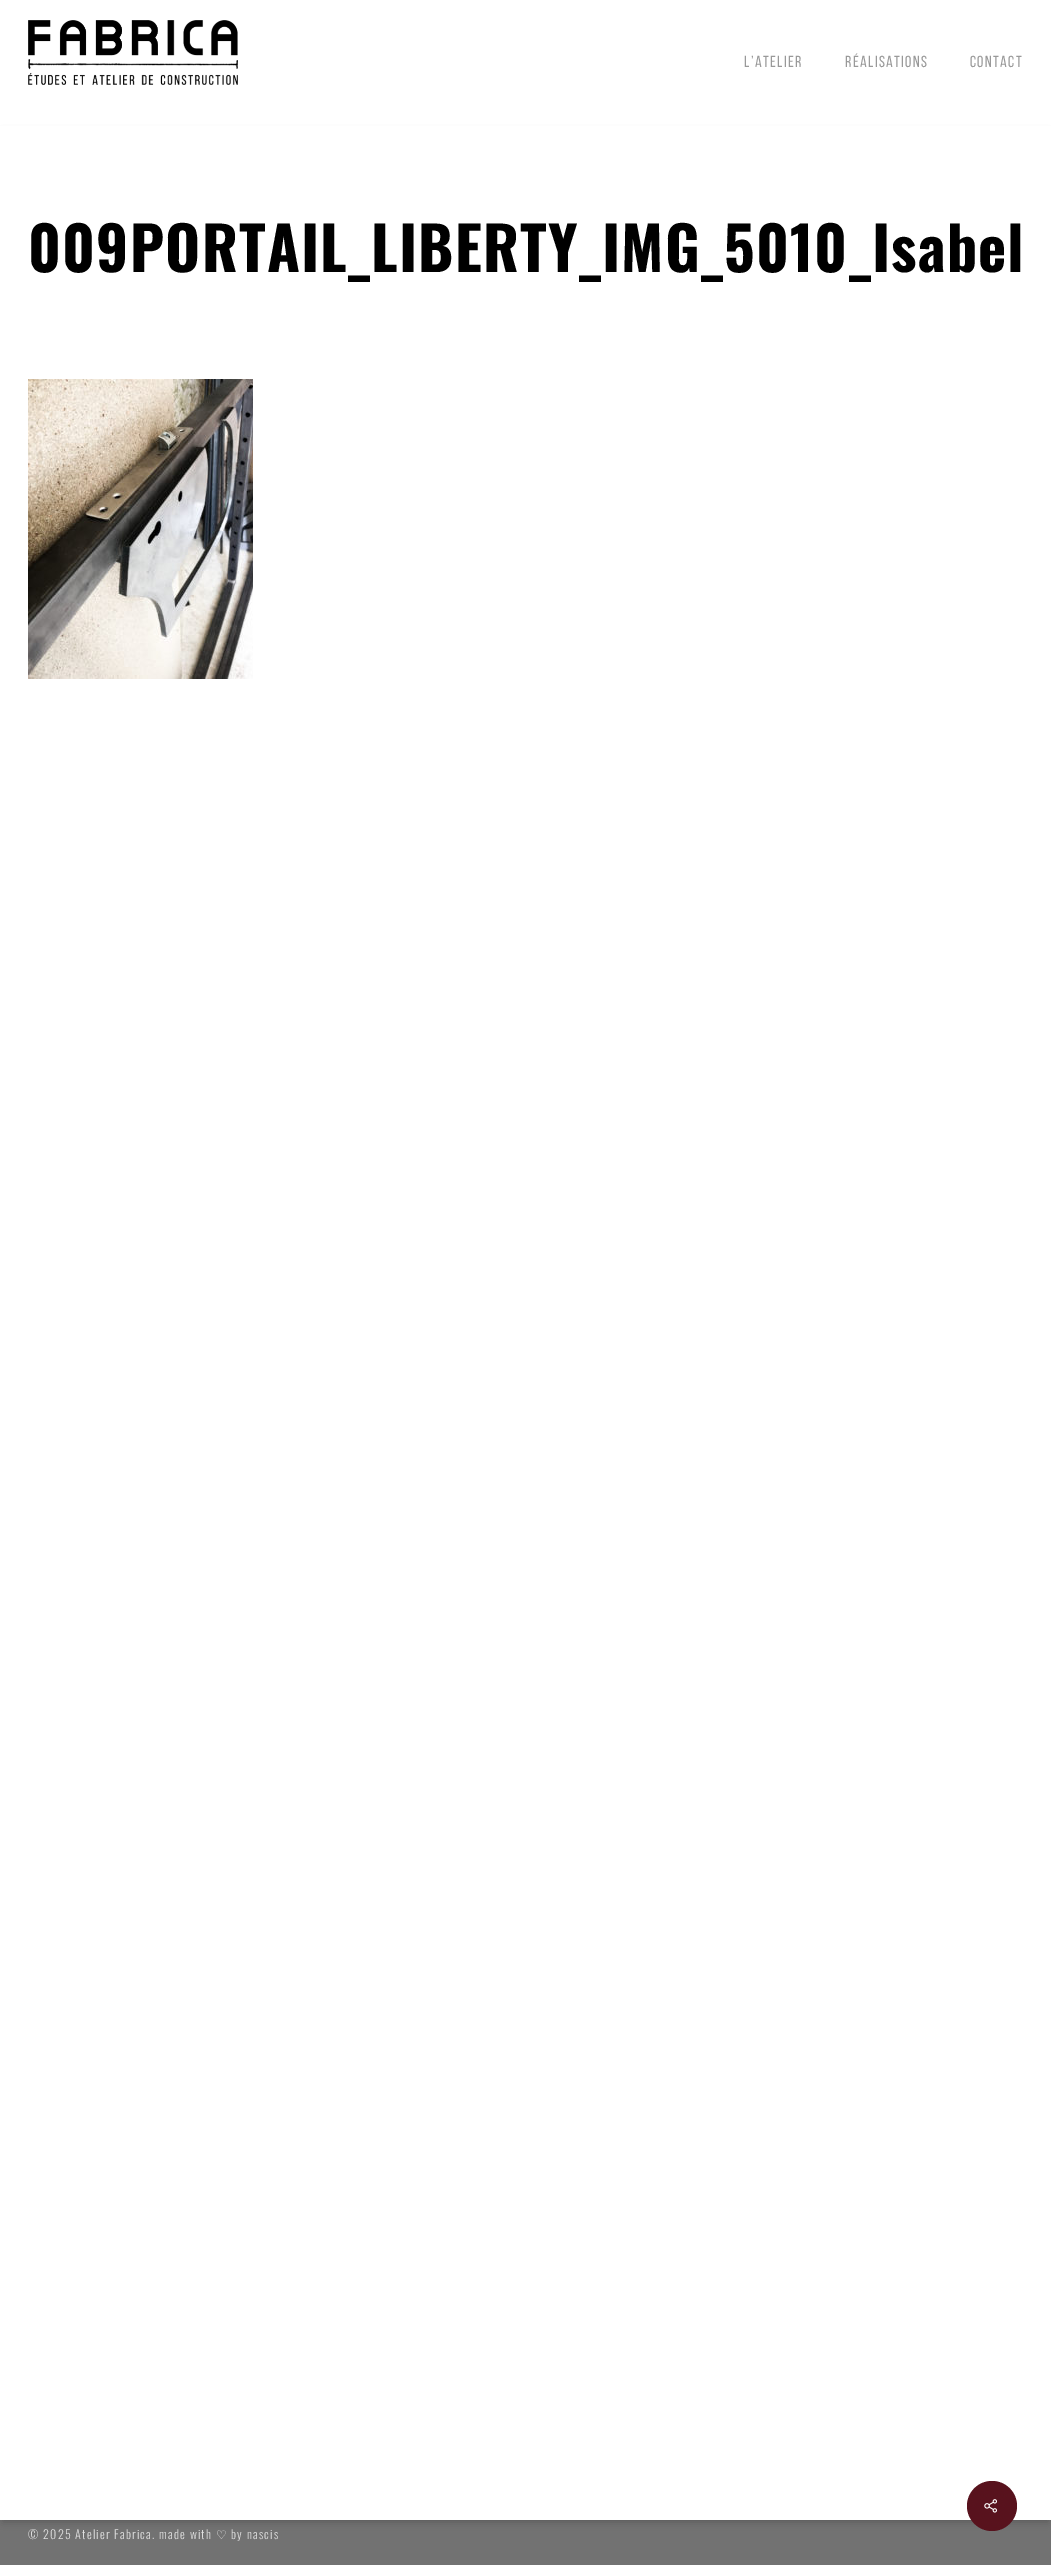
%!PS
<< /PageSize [1051 2565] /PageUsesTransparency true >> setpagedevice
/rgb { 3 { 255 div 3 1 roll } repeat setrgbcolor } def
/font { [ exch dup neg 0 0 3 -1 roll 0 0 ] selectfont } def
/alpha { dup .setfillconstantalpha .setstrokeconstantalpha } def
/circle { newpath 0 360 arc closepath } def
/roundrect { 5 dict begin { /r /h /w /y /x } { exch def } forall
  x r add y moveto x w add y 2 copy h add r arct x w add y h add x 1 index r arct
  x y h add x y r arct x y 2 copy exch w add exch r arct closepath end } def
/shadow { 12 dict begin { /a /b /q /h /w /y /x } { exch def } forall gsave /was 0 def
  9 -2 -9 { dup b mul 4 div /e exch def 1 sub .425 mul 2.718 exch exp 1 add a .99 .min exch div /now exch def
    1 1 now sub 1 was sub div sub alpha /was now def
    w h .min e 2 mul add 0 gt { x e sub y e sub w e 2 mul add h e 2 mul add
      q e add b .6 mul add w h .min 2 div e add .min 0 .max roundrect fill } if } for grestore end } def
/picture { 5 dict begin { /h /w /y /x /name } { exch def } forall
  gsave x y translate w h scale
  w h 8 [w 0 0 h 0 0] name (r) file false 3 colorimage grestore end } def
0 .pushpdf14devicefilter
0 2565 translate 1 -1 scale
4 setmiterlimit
255 255 255 rgb
0 0 1051 2565 rectfill
(img_01.rgb) 28 20 210 65 picture
114 114 114 rgb
0 2520 1051 45 rectfill
0 0 0 rgb
3 133 1045 2389 0 4 0.2 shadow
255 255 255 rgb
0 126 1051 2394 rectfill
(img_02.rgb) 28 379 225 300 picture
88 18 29 rgb
992 2506 25 circle fill
(img_03.rgb) 984 2499 13 14 picture
/BebasNeue-Regular 16 font
153 153 153 rgb
744 67 moveto 1.4 0 (L’ATELIER) ashow
845 67 moveto 1.4 0 (RÉALISATIONS) ashow
970 67 moveto 1.4 0 (CONTACT) ashow
/Oswald-Bold 60 font
0 0 0 rgb
28 272 moveto 1.2 0 (009PORTAIL_LIBERTY_IMG_5010_Isabel) ashow
/Oswald-Light 12 font
224 224 224 rgb
28 2539 moveto 1.2 0 (© 2025 Atelier Fabrica. made with) ashow
/DejaVuSans-Regular 12 font
216 2539 moveto 1.2 0 (♡) ashow
/Oswald-Light 12 font
231 2539 moveto 1.2 0 (by nascis) ashow
.poppdf14devicefilter showpage
